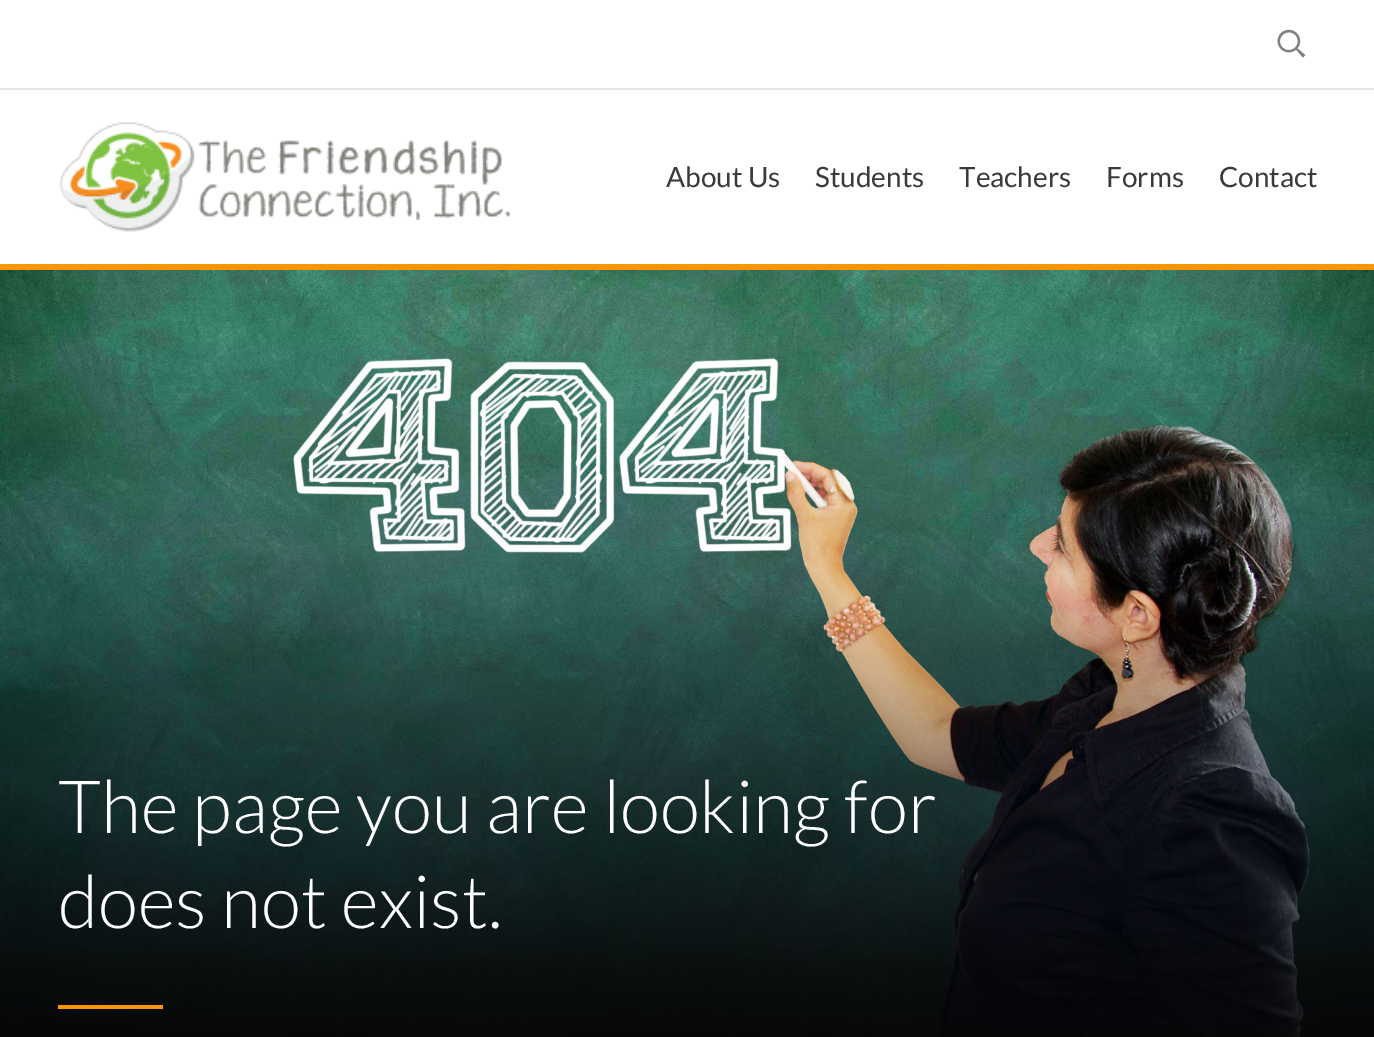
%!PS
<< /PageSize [1374 1037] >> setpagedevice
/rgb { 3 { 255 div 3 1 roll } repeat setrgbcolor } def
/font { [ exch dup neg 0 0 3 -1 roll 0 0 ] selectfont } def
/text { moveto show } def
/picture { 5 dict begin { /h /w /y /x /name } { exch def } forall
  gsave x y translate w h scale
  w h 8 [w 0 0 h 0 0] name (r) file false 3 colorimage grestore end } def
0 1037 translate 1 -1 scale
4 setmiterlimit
255 255 255 rgb
0 0 1374 1037 rectfill
230 230 230 rgb
0 88 1374 2 rectfill
(img_01.rgb) 1277 29 29 29 picture
(img_02.rgb) 59 122 452 110 picture
(img_03.rgb) 0 270 1374 767 picture
255 150 0 rgb
0 264 1374 6 rectfill
58 1005 105 4 rectfill
/Lato-Regular 28 font
58 58 58 rgb
(About Us) 666 187 text
(Students) 815 187 text
(Teachers) 959 187 text
(Forms) 1106 187 text
(Contact) 1219 187 text
/Lato-Light 73.5 font
255 255 255 rgb
(The page you are looking for) 58 833 text
(does not exist.) 58 928 text
showpage
